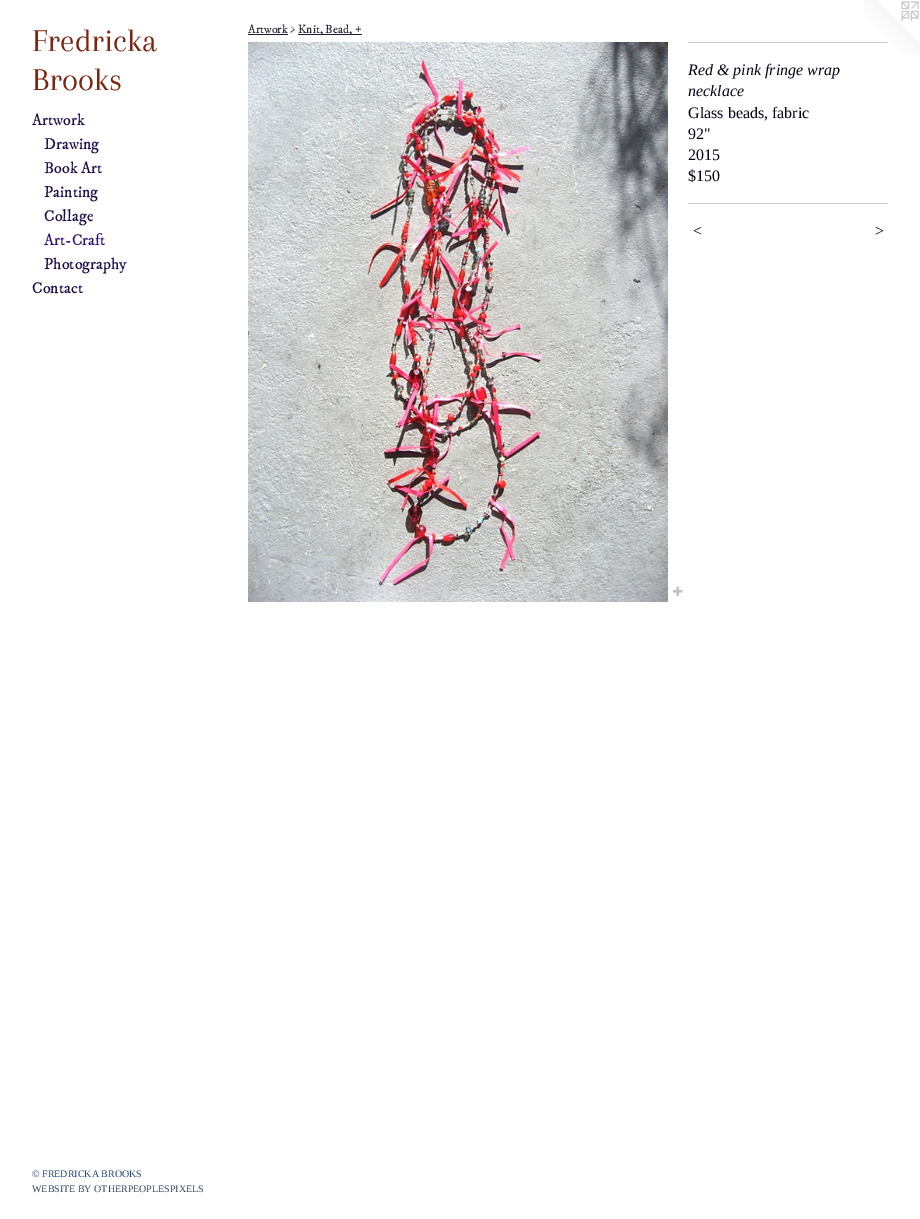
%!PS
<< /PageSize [920 1219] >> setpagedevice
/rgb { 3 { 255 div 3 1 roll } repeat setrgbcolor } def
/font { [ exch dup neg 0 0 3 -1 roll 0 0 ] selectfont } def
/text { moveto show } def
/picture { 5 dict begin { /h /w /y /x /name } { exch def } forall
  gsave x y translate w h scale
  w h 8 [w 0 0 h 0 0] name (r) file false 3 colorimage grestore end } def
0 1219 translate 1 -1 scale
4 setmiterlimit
255 255 255 rgb
0 0 920 1219 rectfill
38 27 51 rgb
248 34 40 1 rectfill
298 34 64 1 rectfill
(img_01.rgb) 248 42 420 560 picture
(img_02.rgb) 673 586 10 10 picture
(img_03.rgb) 864 0 56 56 picture
205 204 209 rgb
688 42 200 1 rectfill
688 203 200 1 rectfill
/Arapey-Regular 33 font
125 36 15 rgb
(Fredricka) 32 51 text
(Brooks) 32 90 text
/IMFELLDWPica-Regular 16 font
30 9 73 rgb
(Artwork) 32 125 text
(Drawing) 44 149 text
(Book Art) 44 173 text
(Painting) 44 197 text
(Collage) 44 221 text
49 15 118 rgb
(Art-Craft) 44 245 text
30 9 73 rgb
(Photography) 44 269 text
(Contact) 32 293 text
/LiberationSerif-Regular 10 font
23 65 121 rgb
(© FREDRICKA BROOKS) 32 1177 text
44 68 95 rgb
(WEBSITE BY OTHERPEOPLESPIXELS) 32 1192 text
/IMFELLDWPica-Regular 12 font
38 27 51 rgb
(Artwork >) 248 33 text
(Knit, Bead, +) 298 33 text
/LiberationSerif-Italic 16 font
4 1 24 rgb
(Red & pink fringe wrap) 688 75 text
(necklace) 688 96 text
/LiberationSerif-Regular 16 font
(Glass beads, fabric) 688 118 text
(92") 688 139 text
(2015) 688 160 text
($150) 688 181 text
/LiberationSerif-Italic 16 font
692 236 moveto 1 0 (<) ashow
874 236 moveto 1 0 (>) ashow
showpage
